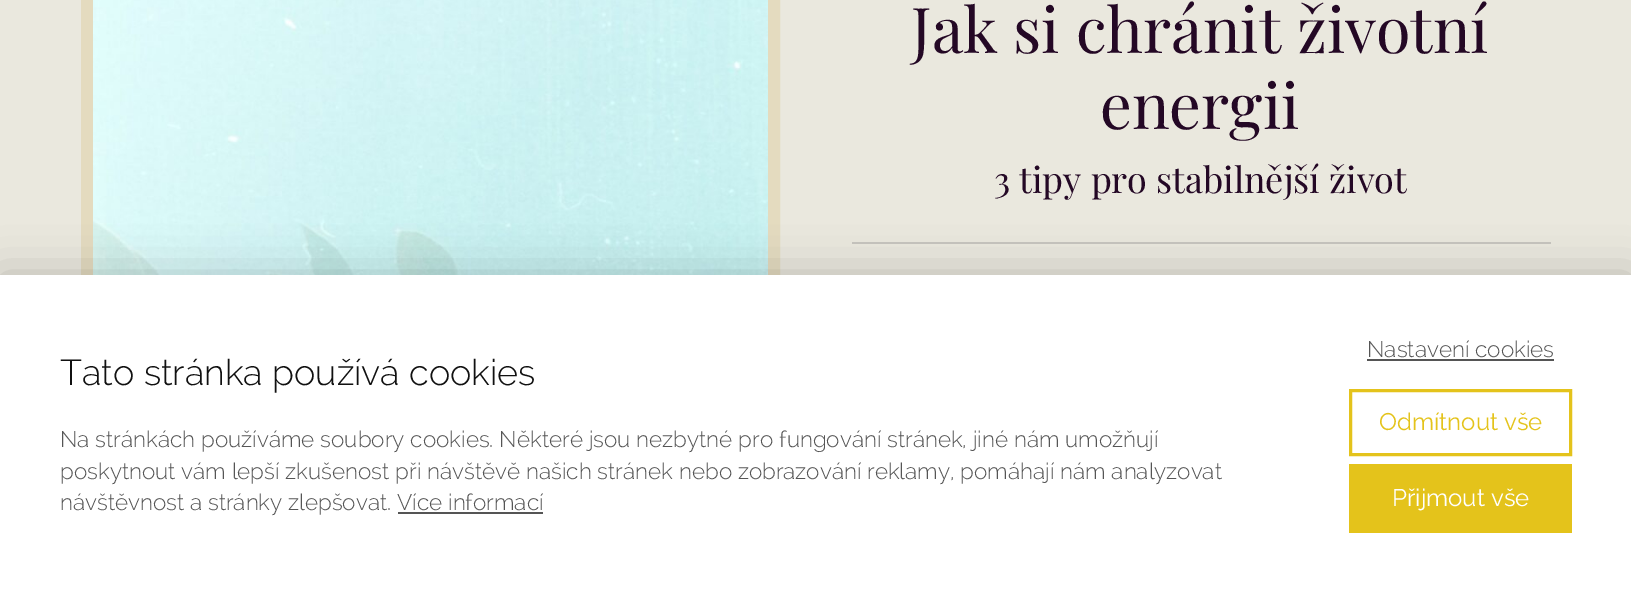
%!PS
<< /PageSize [1631 592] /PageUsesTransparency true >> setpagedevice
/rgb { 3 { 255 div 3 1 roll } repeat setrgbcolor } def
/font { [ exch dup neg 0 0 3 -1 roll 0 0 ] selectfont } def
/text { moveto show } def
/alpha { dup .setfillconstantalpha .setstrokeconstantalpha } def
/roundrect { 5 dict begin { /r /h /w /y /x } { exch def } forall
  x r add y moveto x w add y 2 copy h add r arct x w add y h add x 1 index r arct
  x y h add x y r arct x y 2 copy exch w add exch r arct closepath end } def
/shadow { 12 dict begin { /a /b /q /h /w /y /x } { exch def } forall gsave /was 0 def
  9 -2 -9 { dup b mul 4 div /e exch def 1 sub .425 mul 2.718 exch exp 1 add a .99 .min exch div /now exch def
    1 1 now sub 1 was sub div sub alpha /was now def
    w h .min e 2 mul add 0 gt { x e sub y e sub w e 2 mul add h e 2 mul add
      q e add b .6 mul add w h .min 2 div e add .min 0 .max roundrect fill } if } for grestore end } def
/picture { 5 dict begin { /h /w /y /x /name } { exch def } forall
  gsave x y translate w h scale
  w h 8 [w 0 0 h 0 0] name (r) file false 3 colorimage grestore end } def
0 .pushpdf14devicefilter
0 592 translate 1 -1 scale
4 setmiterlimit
234 232 222 rgb
0 0 1631 592 rectfill
228 219 191 rgb
12 setlinewidth
87 -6 687 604 rectstroke
(img_01.rgb) 93 0 675 275 picture
199 197 189 rgb
852 242 699 2 rectfill
0 0 0 rgb
0 275 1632 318 0 22.5 0.2 shadow
255 255 255 rgb
0 275 1631 317 rectfill
85 85 85 rgb
398 512 145 2 rectfill
1367 359 187 2 rectfill
228 195 27 rgb
3 setlinewidth
1350.5 390.5 220 64 rectstroke
1349 464 223 69 rectfill
/PlayfairDisplay-Regular 63 font
36 8 37 rgb
(Jak si chránit životní) 911 53 text
(energii) 1100 129 text
/PlayfairDisplay-Regular 36 font
(3 tipy pro stabilnější život) 994 193 text
/Raleway-Light 36 font
17 17 17 rgb
(Tato stránka používá cookies) 60 385 text
/Raleway-Light 22.5 font
85 85 85 rgb
(Na stránkách používáme soubory cookies. Některé jsou nezbytné pro fungování stránek, jiné nám umožňují) 60 447 text
(poskytnout vám lepší zkušenost při návštěvě našich stránek nebo zobrazování reklamy, pomáhají nám analyzovat) 60 479 text
(návštěvnost a stránky zlepšovat. Více informací) 60 510 text
(Nastavení cookies) 1367 357 text
/Raleway-Regular 24 font
228 195 27 rgb
(Odmítnout vše) 1379 430 text
255 255 255 rgb
(Přijmout vše) 1392 506 text
.poppdf14devicefilter showpage
